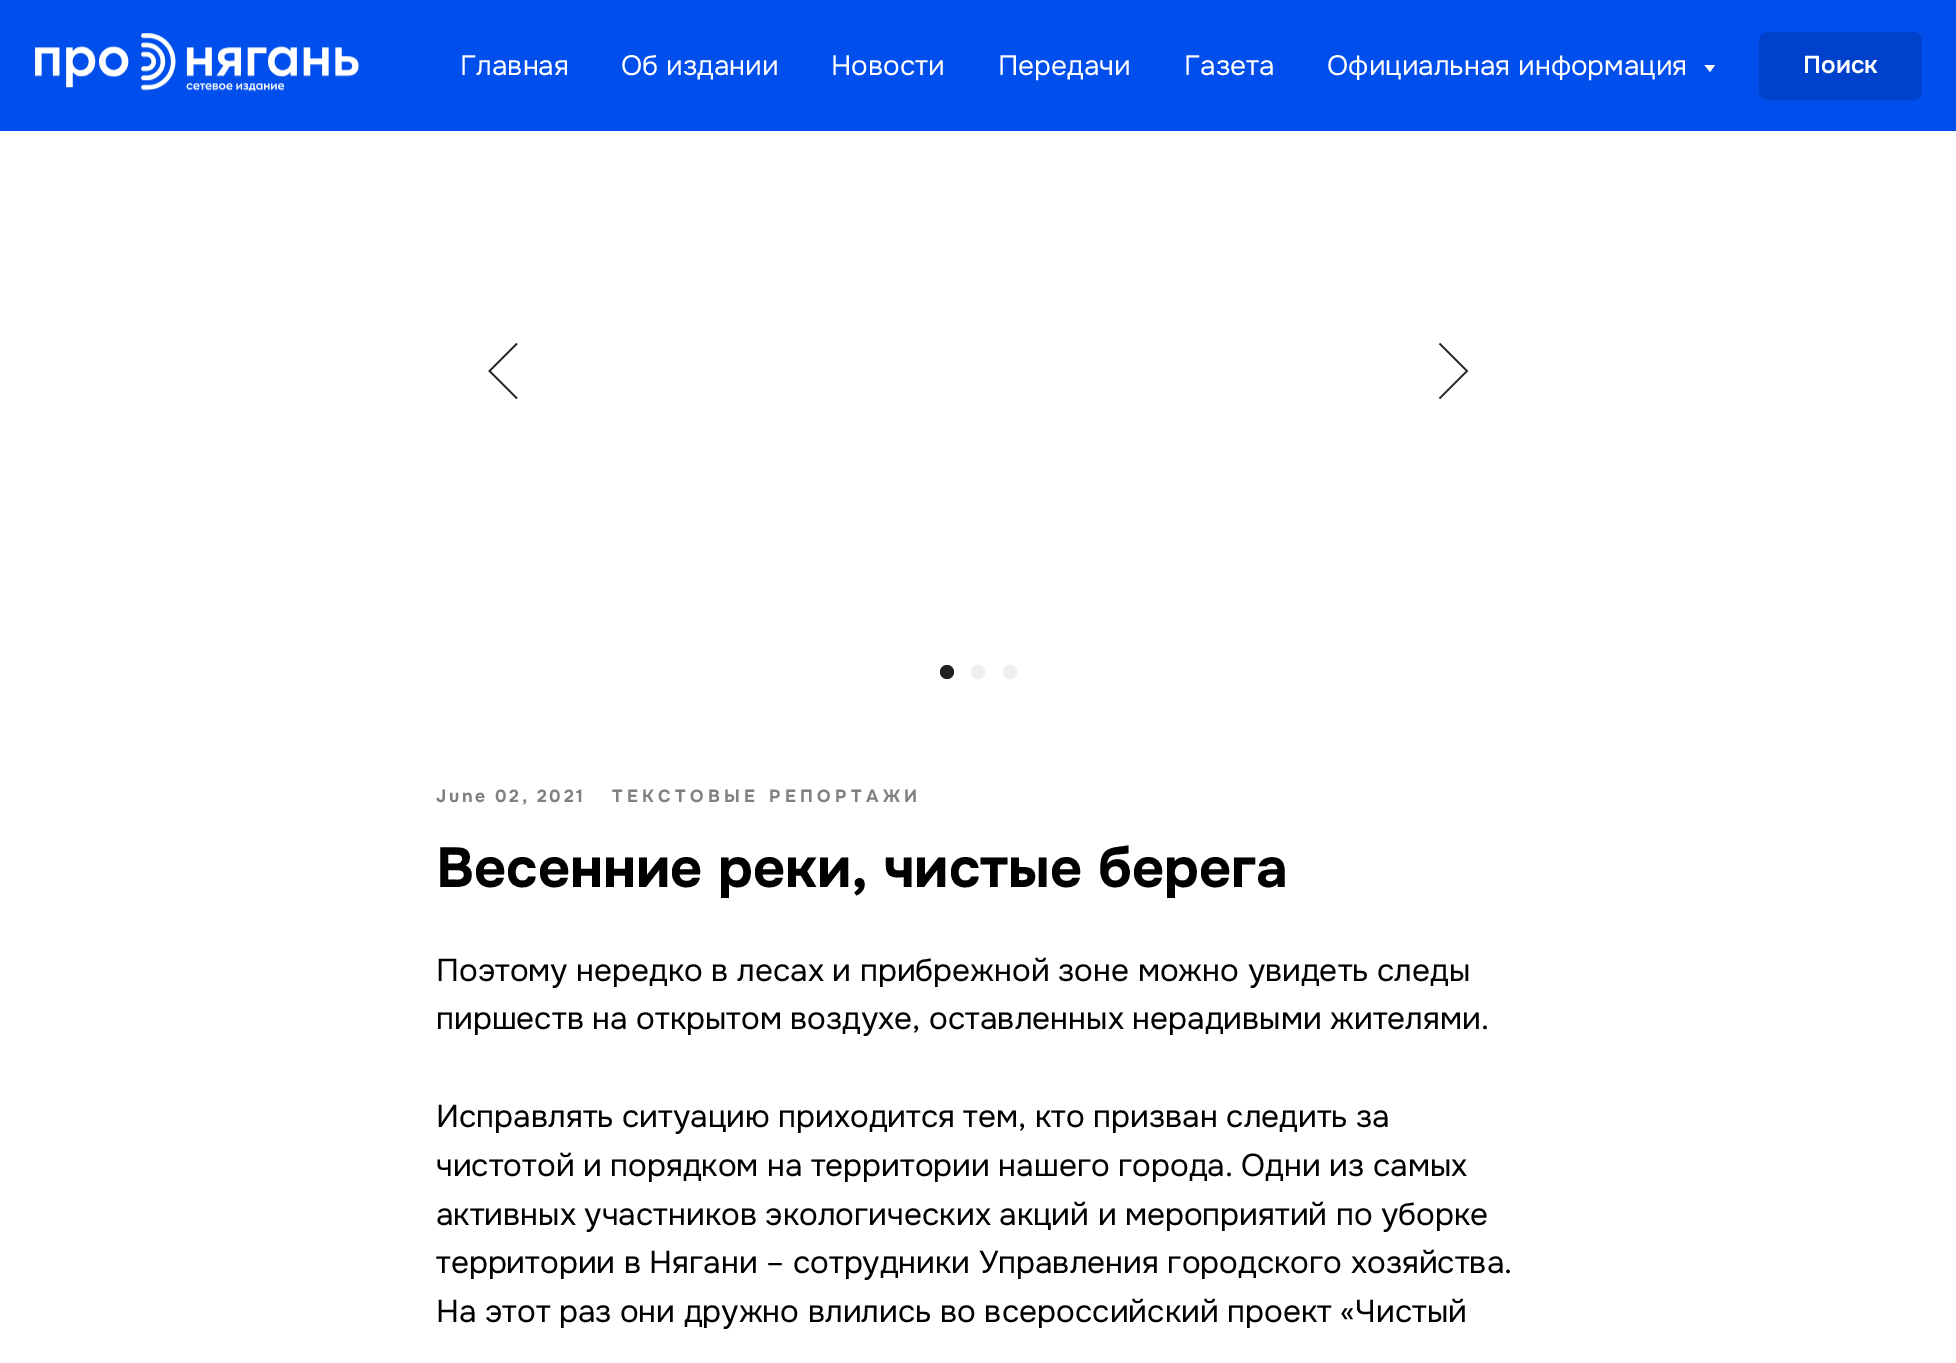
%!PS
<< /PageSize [1956 1363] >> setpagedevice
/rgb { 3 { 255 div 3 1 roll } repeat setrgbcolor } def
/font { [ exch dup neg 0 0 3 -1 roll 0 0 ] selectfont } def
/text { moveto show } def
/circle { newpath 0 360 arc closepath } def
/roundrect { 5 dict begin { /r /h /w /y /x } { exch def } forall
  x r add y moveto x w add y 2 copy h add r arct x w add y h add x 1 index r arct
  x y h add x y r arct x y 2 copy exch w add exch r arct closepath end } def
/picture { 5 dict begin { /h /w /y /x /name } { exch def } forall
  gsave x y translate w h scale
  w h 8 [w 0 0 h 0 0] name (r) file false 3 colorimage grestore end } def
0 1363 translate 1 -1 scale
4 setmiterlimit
255 255 255 rgb
0 0 1956 1363 rectfill
0 78 235 rgb
0 0 1956 131 rectfill
(img_01.rgb) 35 33 324 59 picture
255 255 255 rgb
1704.5 65 moveto 10.5 0 rlineto -5 7 rlineto closepath fill
0 65 204 rgb
1759 32 163 68 9 roundrect fill
34 34 34 rgb
1.7 setlinewidth
517 398.5 moveto -27.5 -27.5 rlineto 27.5 -27.5 rlineto stroke
1439.5 343.5 moveto 27.5 27.5 rlineto -27.5 27.5 rlineto stroke
947 672 7 circle fill
238 238 238 rgb
978 672 7 circle fill
1010 672 7 circle fill
/Onest-Regular 28 font
255 255 255 rgb
(Главная) 460 75 text
(Об издании) 621 75 text
(Новости) 831 75 text
(Передачи) 998 75 text
(Газета) 1184 75 text
(Официальная информация) 1327 75 text
/Onest-SemiBold 24.5 font
(Поиск) 1803 73 text
/Onest-Bold 17.5 font
128 128 128 rgb
436 802 moveto 2.6 0 (June 02, 2021) ashow
612 802 moveto 4.4 0 (ТЕКСТОВЫЕ РЕПОРТАЖИ) ashow
/Onest-Bold 56 font
0 0 0 rgb
(Весенние реки, чистые берега) 436 887 text
/Onest-Regular 31.5 font
(Поэтому нередко в лесах и прибрежной зоне можно увидеть следы) 436 981 text
(пиршеств на открытом воздухе, оставленных нерадивыми жителями.) 436 1029 text
(Исправлять ситуацию приходится тем, кто призван следить за) 436 1127 text
(чистотой и порядком на территории нашего города. Одни из самых) 436 1176 text
(активных участников экологических акций и мероприятий по уборке) 436 1225 text
(территории в Нягани – сотрудники Управления городского хозяйства.) 436 1273 text
(На этот раз они дружно влились во всероссийский проект «Чистый) 436 1322 text
showpage
